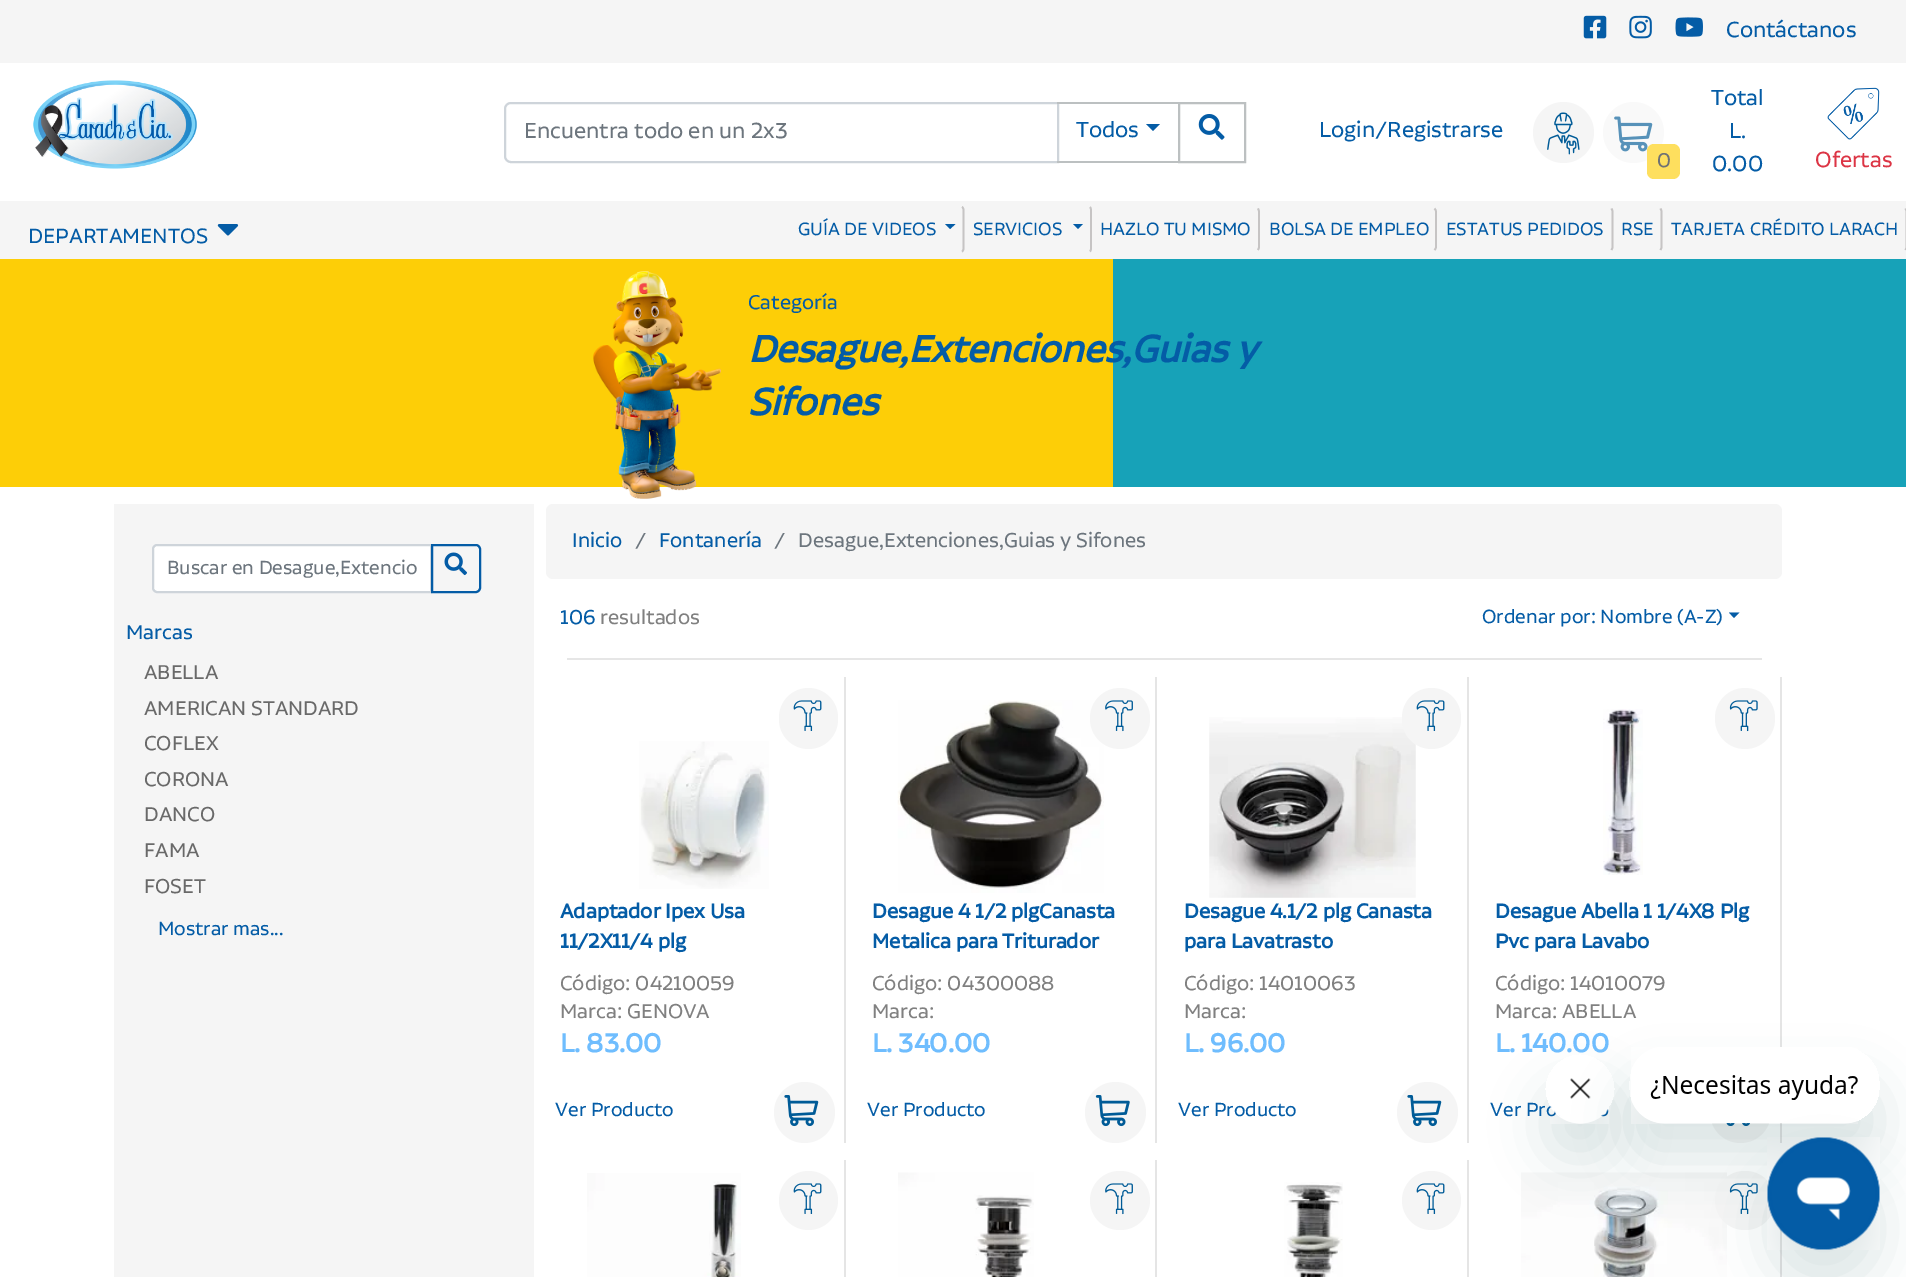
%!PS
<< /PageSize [1906 1277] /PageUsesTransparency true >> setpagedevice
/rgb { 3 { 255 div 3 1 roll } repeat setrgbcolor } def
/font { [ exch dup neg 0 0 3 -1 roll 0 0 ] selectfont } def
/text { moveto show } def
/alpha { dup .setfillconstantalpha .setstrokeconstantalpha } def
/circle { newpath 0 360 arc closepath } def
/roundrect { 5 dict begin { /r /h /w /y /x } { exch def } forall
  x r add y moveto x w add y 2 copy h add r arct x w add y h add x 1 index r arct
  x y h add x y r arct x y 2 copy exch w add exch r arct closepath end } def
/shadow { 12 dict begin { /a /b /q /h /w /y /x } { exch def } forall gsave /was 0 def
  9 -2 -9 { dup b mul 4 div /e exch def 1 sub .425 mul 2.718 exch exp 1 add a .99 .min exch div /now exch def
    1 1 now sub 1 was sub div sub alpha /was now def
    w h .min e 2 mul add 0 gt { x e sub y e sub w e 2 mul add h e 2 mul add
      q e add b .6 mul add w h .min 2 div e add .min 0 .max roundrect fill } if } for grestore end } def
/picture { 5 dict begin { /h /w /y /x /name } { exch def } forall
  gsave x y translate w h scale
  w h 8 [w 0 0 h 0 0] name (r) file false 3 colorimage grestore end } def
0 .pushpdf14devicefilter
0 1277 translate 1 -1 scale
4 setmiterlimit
255 255 255 rgb
0 0 1906 1277 rectfill
245 245 245 rgb
0 0 1906 63 rectfill
(img_01.rgb) 1583 15 24 24 picture
(img_02.rgb) 1629 15 23 24 picture
(img_03.rgb) 1675 17 28 20 picture
(img_04.rgb) 33 80 164 89 picture
206 212 218 rgb
2 setlinewidth
511 103 moveto 547 0 rlineto 0 59 rlineto -547 0 rlineto -3.5 0 -6 -2.5 -6 -6 rcurveto 0 -47 rlineto 0 -3.5 2.5 -6 6 -6 rcurveto closepath stroke
188 192 193 rgb
1057 102 123 2 rectfill
1057 161 123 2 rectfill
4 92 166 rgb
1146 124 moveto 14 0 rlineto -7 7 rlineto closepath fill
188 192 193 rgb
1179 103 66 59 rectstroke
(img_05.rgb) 1198 114 27 26 picture
245 245 245 rgb
1563.5 132.5 30.5 circle fill
(img_06.rgb) 1547 112 33 43 picture
249 249 249 rgb
1633.5 132.5 30.5 circle fill
(img_07.rgb) 1614 116 39 36 picture
254 223 94 rgb
1647 144 33 35 7 roundrect fill
(img_08.rgb) 1827 87 53 53 picture
245 245 245 rgb
0 201 1906 58 rectfill
(img_09.rgb) 217 224 22 12 picture
198 196 196 rgb
1.8 setlinewidth
962 207 moveto 1 0.5 1.5 2 1.5 3 rcurveto 0 38.5 rlineto 0 1 -0.5 2.5 -1.5 3 rcurveto stroke
4 92 166 rgb
945 224 moveto 10.5 0 rlineto -5.5 5 rlineto closepath fill
198 196 196 rgb
1090 207 moveto 0.5 0.5 1 2 1 3 rcurveto 0 38.5 rlineto 0 1 -0.5 2.5 -1 3 rcurveto stroke
4 92 166 rgb
1073 224 moveto 10 0 rlineto -5 5 rlineto closepath fill
198 196 196 rgb
1258 208.5 moveto 0.5 1 1 2 1 3.5 rcurveto 0 35 rlineto 0 1 -0.5 2 -1 3 rcurveto stroke
1434.5 208.5 moveto 1 1 1.5 2 1.5 3.5 rcurveto 0 35 rlineto 0 1 -0.5 2 -1.5 3 rcurveto stroke
1611.5 208.5 moveto 0.5 1 1 2 1 3.5 rcurveto 0 35 rlineto 0 1 -0.5 2 -1 3 rcurveto stroke
1660.5 208.5 moveto 0.5 1 1 2 1 3.5 rcurveto 0 35 rlineto 0 1 -0.5 2 -1 3 rcurveto stroke
1905.5 208.5 moveto 0.5 1 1 2 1 3.5 rcurveto 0 35 rlineto 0 1 -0.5 2 -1 3 rcurveto stroke
253 206 7 rgb
0 259 1113 228 rectfill
23 162 184 rgb
1113 259 793 228 rectfill
(img_10.rgb) 593 271 128 228 picture
245 245 245 rgb
114 504 420 773 rectfill
255 255 255 rgb
157 545 moveto 274 0 rlineto 0 47 rlineto -274 0 rlineto -2 0 -4 -2 -4 -4 rcurveto 0 -39 rlineto 0 -2 2 -4 4 -4 rcurveto closepath gsave fill grestore
206 212 218 rgb
2 setlinewidth
stroke
4 92 166 rgb
432 545 moveto 44 0 rlineto 2 0 4 2 4 4 rcurveto 0 39 rlineto 0 2 -2 4 -4 4 rcurveto -44 0 rlineto closepath stroke
(img_11.rgb) 444 552 23 24 picture
245 245 245 rgb
546 504 1236 75 7 roundrect fill
4 92 166 rgb
1729 612.5 moveto 10.5 0 rlineto -5.5 5.5 rlineto closepath fill
230 230 230 rgb
567 658 1195 2 rectfill
229 229 229 rgb
844 677 2 466 rectfill
245 245 245 rgb
779 688 59 61 29.5 roundrect fill
(img_12.rgb) 793 700 29 31 picture
(img_13.rgb) 639 741 130 148 picture
804.5 1112.5 30.5 circle fill
(img_14.rgb) 784 1095 35 32 picture
229 229 229 rgb
1155 677 2 466 rectfill
(img_16.rgb) 897 700 207 193 picture
245 245 245 rgb
1090 688 60 61 30 roundrect fill
(img_15.rgb) 1105 700 28 32 picture
1115.5 1112.5 30.5 circle fill
(img_17.rgb) 1095 1095 35 32 picture
229 229 229 rgb
1467 677 2 466 rectfill
(img_18.rgb) 1209 717 207 181 picture
245 245 245 rgb
1402 688 59 61 29.5 roundrect fill
(img_12.rgb) 1416 700 29 31 picture
1427.5 1112.5 30.5 circle fill
(img_14.rgb) 1407 1095 35 32 picture
229 229 229 rgb
1780 677 2 466 rectfill
245 245 245 rgb
1715 688 60 61 30 roundrect fill
(img_19.rgb) 1729 700 29 32 picture
(img_20.rgb) 1603 709 40 166 picture
1740.5 1112.5 30.5 circle fill
(img_21.rgb) 1726 1123 24 3 picture
229 229 229 rgb
844 1160 2 117 rectfill
(img_22.rgb) 587 1173 154 104 picture
245 245 245 rgb
808.5 1200.5 29.5 circle fill
(img_12.rgb) 793 1183 29 31 picture
229 229 229 rgb
1155 1160 2 117 rectfill
(img_23.rgb) 898 1172 136 105 picture
245 245 245 rgb
1090 1171 60 59 29.5 roundrect fill
(img_15.rgb) 1105 1183 28 32 picture
229 229 229 rgb
1467 1160 2 117 rectfill
(img_24.rgb) 1284 1182 59 95 picture
245 245 245 rgb
1431.5 1200.5 29.5 circle fill
(img_12.rgb) 1416 1183 29 31 picture
229 229 229 rgb
1780 1228 2 49 rectfill
(img_25.rgb) 1521 1172 206 105 picture
245 245 245 rgb
1715 1171 60 59 29.5 roundrect fill
(img_19.rgb) 1729 1183 29 32 picture
gsave
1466 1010 moveto 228 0 rlineto 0 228 rlineto -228 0 rlineto closepath 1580 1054 moveto 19.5 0 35 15.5 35 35 rcurveto 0 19.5 -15.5 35 -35 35 rcurveto -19.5 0 -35 -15.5 -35 -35 rcurveto 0 -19.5 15.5 -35 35 -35 rcurveto closepath eoclip newpath
23 73 77 rgb
1545 1089 70 70 35 26 0.15 shadow
grestore
/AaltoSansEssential-Regular 25.75 font
4 92 166 rgb
(Contáctanos) 1726 37 text
108 117 125 rgb
(Encuentra todo en un 2x3) 524 138 text
4 92 166 rgb
(Todos) 1076 137 text
(Login/Registrarse) 1319 137 text
(Total) 1711 105 text
(L.) 1729 138 text
(0.00) 1712 171 text
/AaltoSansEssential-Regular 23.5 font
111 113 116 rgb
(0) 1657 167 text
/AaltoSansEssential-Regular 25.75 font
220 53 69 rgb
(Ofertas) 1815 167 text
/AaltoSansEssential-Regular 24.5 font
4 92 166 rgb
(DEPARTAMENTOS) 28 243 text
/AaltoSansEssential-Regular 21 font
(GUÍA DE VIDEOS) 798 235 text
(SERVICIOS) 973 235 text
(HAZLO TU MISMO) 1100 235 text
(BOLSA DE EMPLEO) 1269 235 text
(ESTATUS PEDIDOS) 1446 235 text
(RSE) 1621 235 text
(TARJETA CRÉDITO LARACH) 1671 235 text
/AaltoSansEssential-Regular 23.5 font
(Categoría) 748 309 text
/AaltoSansEssential-BoldItalic 44.25 font
(Desague,Extenciones,Guias y) 748 362 text
(Sifones) 748 415 text
/AaltoSansEssential-Regular 22.5 font
108 117 125 rgb
(Buscar en Desague,Extencio) 167 574 text
/AaltoSansEssential-Regular 23.75 font
4 92 166 rgb
(Marcas) 126 639 text
105 105 105 rgb
(ABELLA) 144 679 text
(AMERICAN STANDARD) 144 715 text
(COFLEX) 144 750 text
(CORONA) 144 786 text
(DANCO) 144 821 text
(FAMA) 144 857 text
(FOSET) 144 893 text
/AaltoSansEssential-Regular 22.5 font
4 92 166 rgb
(Mostrar mas...) 158 935 text
/AaltoSansEssential-Regular 23.75 font
(Inicio) 572 547 text
108 117 125 rgb
(/) 635 547 text
4 92 166 rgb
(Fontanería) 659 547 text
108 117 125 rgb
(/) 774 547 text
(Desague,Extenciones,Guias y Sifones) 798 547 text
4 92 166 rgb
(106) 560 624 text
128 128 128 rgb
(resultados) 600 624 text
/AaltoSansEssential-Regular 22.5 font
4 92 166 rgb
(Ordenar por: Nombre \(A-Z\)) 1482 623 text
/AaltoSansEssential-Bold 23.75 font
(Adaptador Ipex Usa) 560 918 text
(11/2X11/4 plg) 560 948 text
/AaltoSansEssential-Regular 23.75 font
128 128 128 rgb
(Código: 04210059) 560 990 text
(Marca: GENOVA) 560 1018 text
/AaltoSansEssential-Bold 30.5 font
111 189 254 rgb
(L. 83.00) 560 1052 text
/AaltoSansEssential-Regular 22.5 font
4 92 166 rgb
(Ver Producto) 555 1116 text
/AaltoSansEssential-Bold 23.75 font
(Desague 4 1/2 plgCanasta) 872 918 text
(Metalica para Triturador) 872 948 text
/AaltoSansEssential-Regular 23.75 font
128 128 128 rgb
(Código: 04300088) 872 990 text
(Marca:) 872 1018 text
/AaltoSansEssential-Bold 30.5 font
111 189 254 rgb
(L. 340.00) 872 1052 text
/AaltoSansEssential-Regular 22.5 font
4 92 166 rgb
(Ver Producto) 867 1116 text
/AaltoSansEssential-Bold 23.75 font
(Desague 4.1/2 plg Canasta) 1184 918 text
(para Lavatrasto) 1184 948 text
/AaltoSansEssential-Regular 23.75 font
128 128 128 rgb
(Código: 14010063) 1184 990 text
(Marca:) 1184 1018 text
/AaltoSansEssential-Bold 30.5 font
111 189 254 rgb
(L. 96.00) 1184 1052 text
/AaltoSansEssential-Regular 22.5 font
4 92 166 rgb
(Ver Producto) 1178 1116 text
/AaltoSansEssential-Bold 23.75 font
(Desague Abella 1 1/4X8 Plg) 1495 918 text
(Pvc para Lavabo) 1495 948 text
/AaltoSansEssential-Regular 23.75 font
128 128 128 rgb
(Código: 14010079) 1495 990 text
(Marca: ABELLA) 1495 1018 text
/AaltoSansEssential-Bold 30.5 font
111 189 254 rgb
(L. 140.00) 1495 1052 text
/AaltoSansEssential-Regular 22.5 font
4 92 166 rgb
(Ver Pro) 1490 1116 text
(img_27.rgb) 1550 1078 59 46 picture
gsave
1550 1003 moveto 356 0 rlineto 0 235 rlineto -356 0 rlineto closepath 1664 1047 moveto 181 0 rlineto 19.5 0 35 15.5 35 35 rcurveto 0 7 rlineto 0 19.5 -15.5 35 -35 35 rcurveto -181 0 rlineto -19.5 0 -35 -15.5 -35 -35 rcurveto 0 -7 rlineto 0 -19.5 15.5 -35 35 -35 rcurveto closepath eoclip newpath
23 73 77 rgb
1629 1082 251 77 35 26 0.15 shadow
grestore
(img_26.rgb) 1631 1047 227 77 picture
23 73 77 rgb
1768 1173 112 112 56 26 0.15 shadow
(img_28.rgb) 1767 1137 113 113 picture
.poppdf14devicefilter showpage
